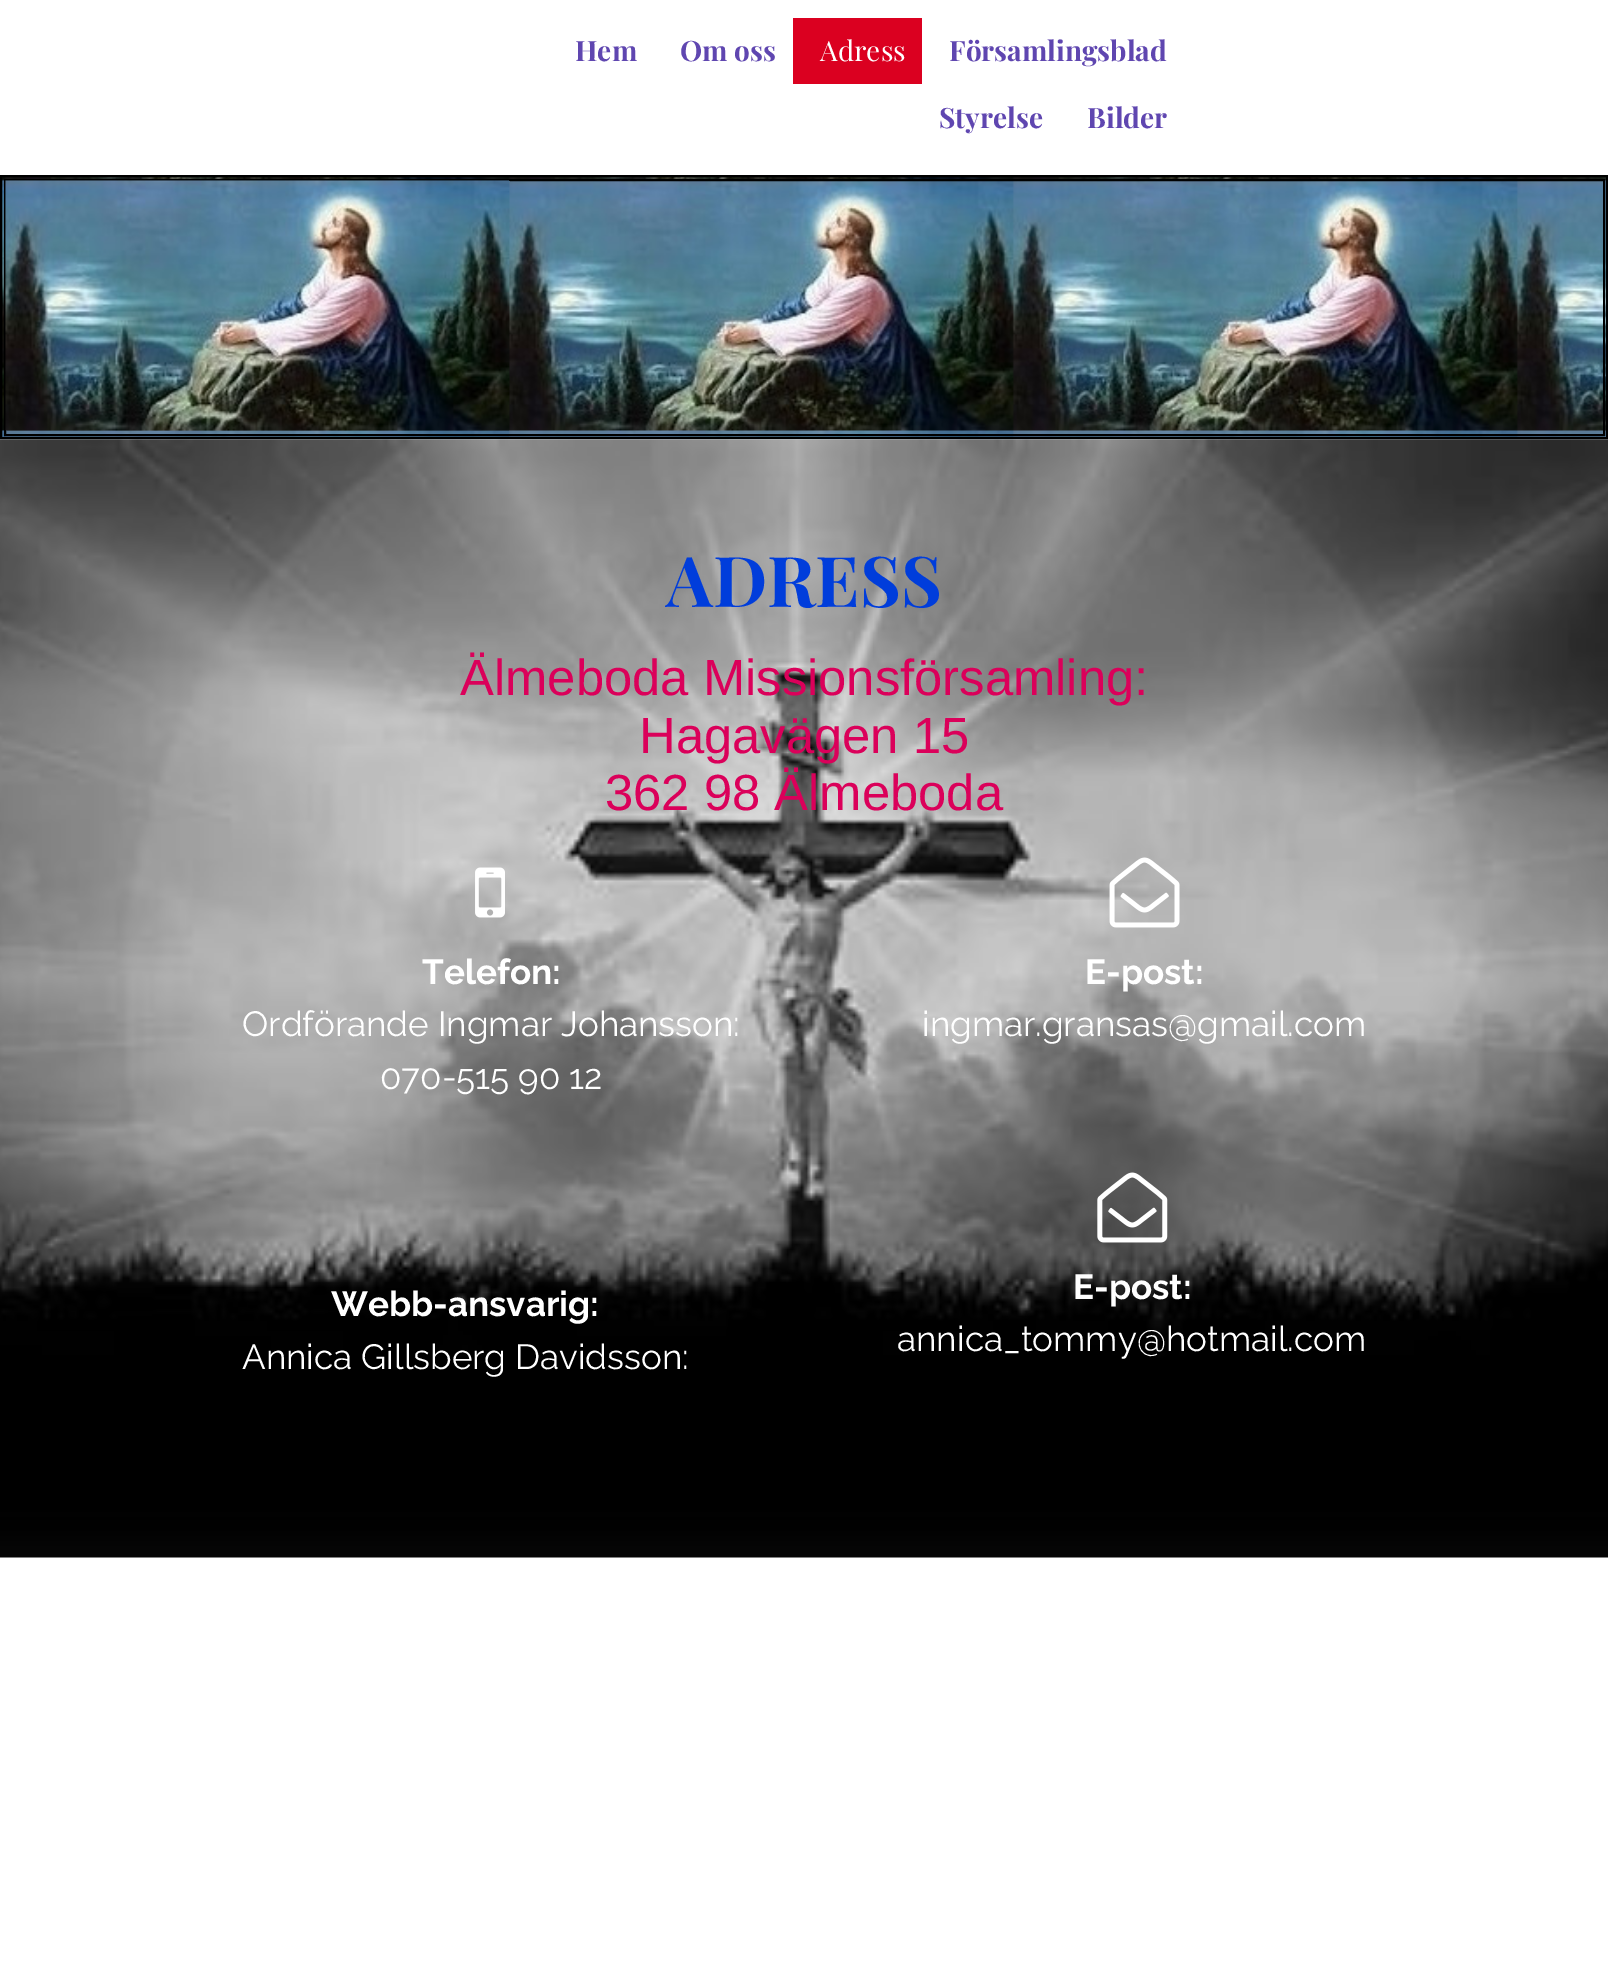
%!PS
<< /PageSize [1608 1978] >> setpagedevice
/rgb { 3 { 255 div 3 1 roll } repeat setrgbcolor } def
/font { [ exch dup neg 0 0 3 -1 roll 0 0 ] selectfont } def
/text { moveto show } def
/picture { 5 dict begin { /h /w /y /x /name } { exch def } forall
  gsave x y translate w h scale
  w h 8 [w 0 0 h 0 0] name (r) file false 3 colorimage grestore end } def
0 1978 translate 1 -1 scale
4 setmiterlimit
255 255 255 rgb
0 0 1608 1978 rectfill
219 0 32 rgb
793 18 129 66 rectfill
(img_01.rgb) 0 177 1608 263 picture
0 0 0 rgb
2 setlinewidth
1 176 1606 262 rectstroke
5 180 1599 255 rectstroke
(img_02.rgb) 5 180 505 251 picture
(img_03.rgb) 0 439 1608 1119 picture
(img_04.rgb) 475 867 30 51 picture
(img_05.rgb) 1109 857 71 71 picture
(img_06.rgb) 1097 1172 71 71 picture
/PlayfairDisplay-Bold 28 font
95 70 176 rgb
(Hem) 575 61 text
(Om oss) 680 61 text
/PlayfairDisplay-Regular 28 font
255 255 255 rgb
(Adress) 820 61 text
/PlayfairDisplay-Bold 28 font
95 70 176 rgb
(Församlingsblad) 949 61 text
(Styrelse) 939 128 text
(Bilder) 1087 128 text
/PlayfairDisplay-Bold 70 font
0 61 219 rgb
(ADRESS) 666 607 text
/LiberationSans-Regular 50.75 font
219 0 90 rgb
(Älmeboda Missionsförsamling:) 460 695 text
(Hagavägen 15) 639 753 text
(362 98 Älmeboda) 605 810 text
/Raleway-Bold 35 font
255 255 255 rgb
(Telefon:) 422 984 text
/Raleway-Regular 35 font
(Ordförande Ingmar Johansson:) 242 1036 text
(070-515 90 12) 380 1089 text
/Raleway-Bold 35 font
(E-post:) 1085 984 text
/Raleway-Regular 35 font
(ingmar.gransas@gmail.com) 922 1036 text
/Raleway-Bold 35 font
(Webb-ansvarig:) 331 1316 text
/Raleway-Regular 35 font
(Annica Gillsberg Davidsson:) 242 1369 text
/Raleway-Bold 35 font
(E-post:) 1073 1299 text
/Raleway-Regular 35 font
(annica_tommy@hotmail.com) 897 1351 text
showpage
